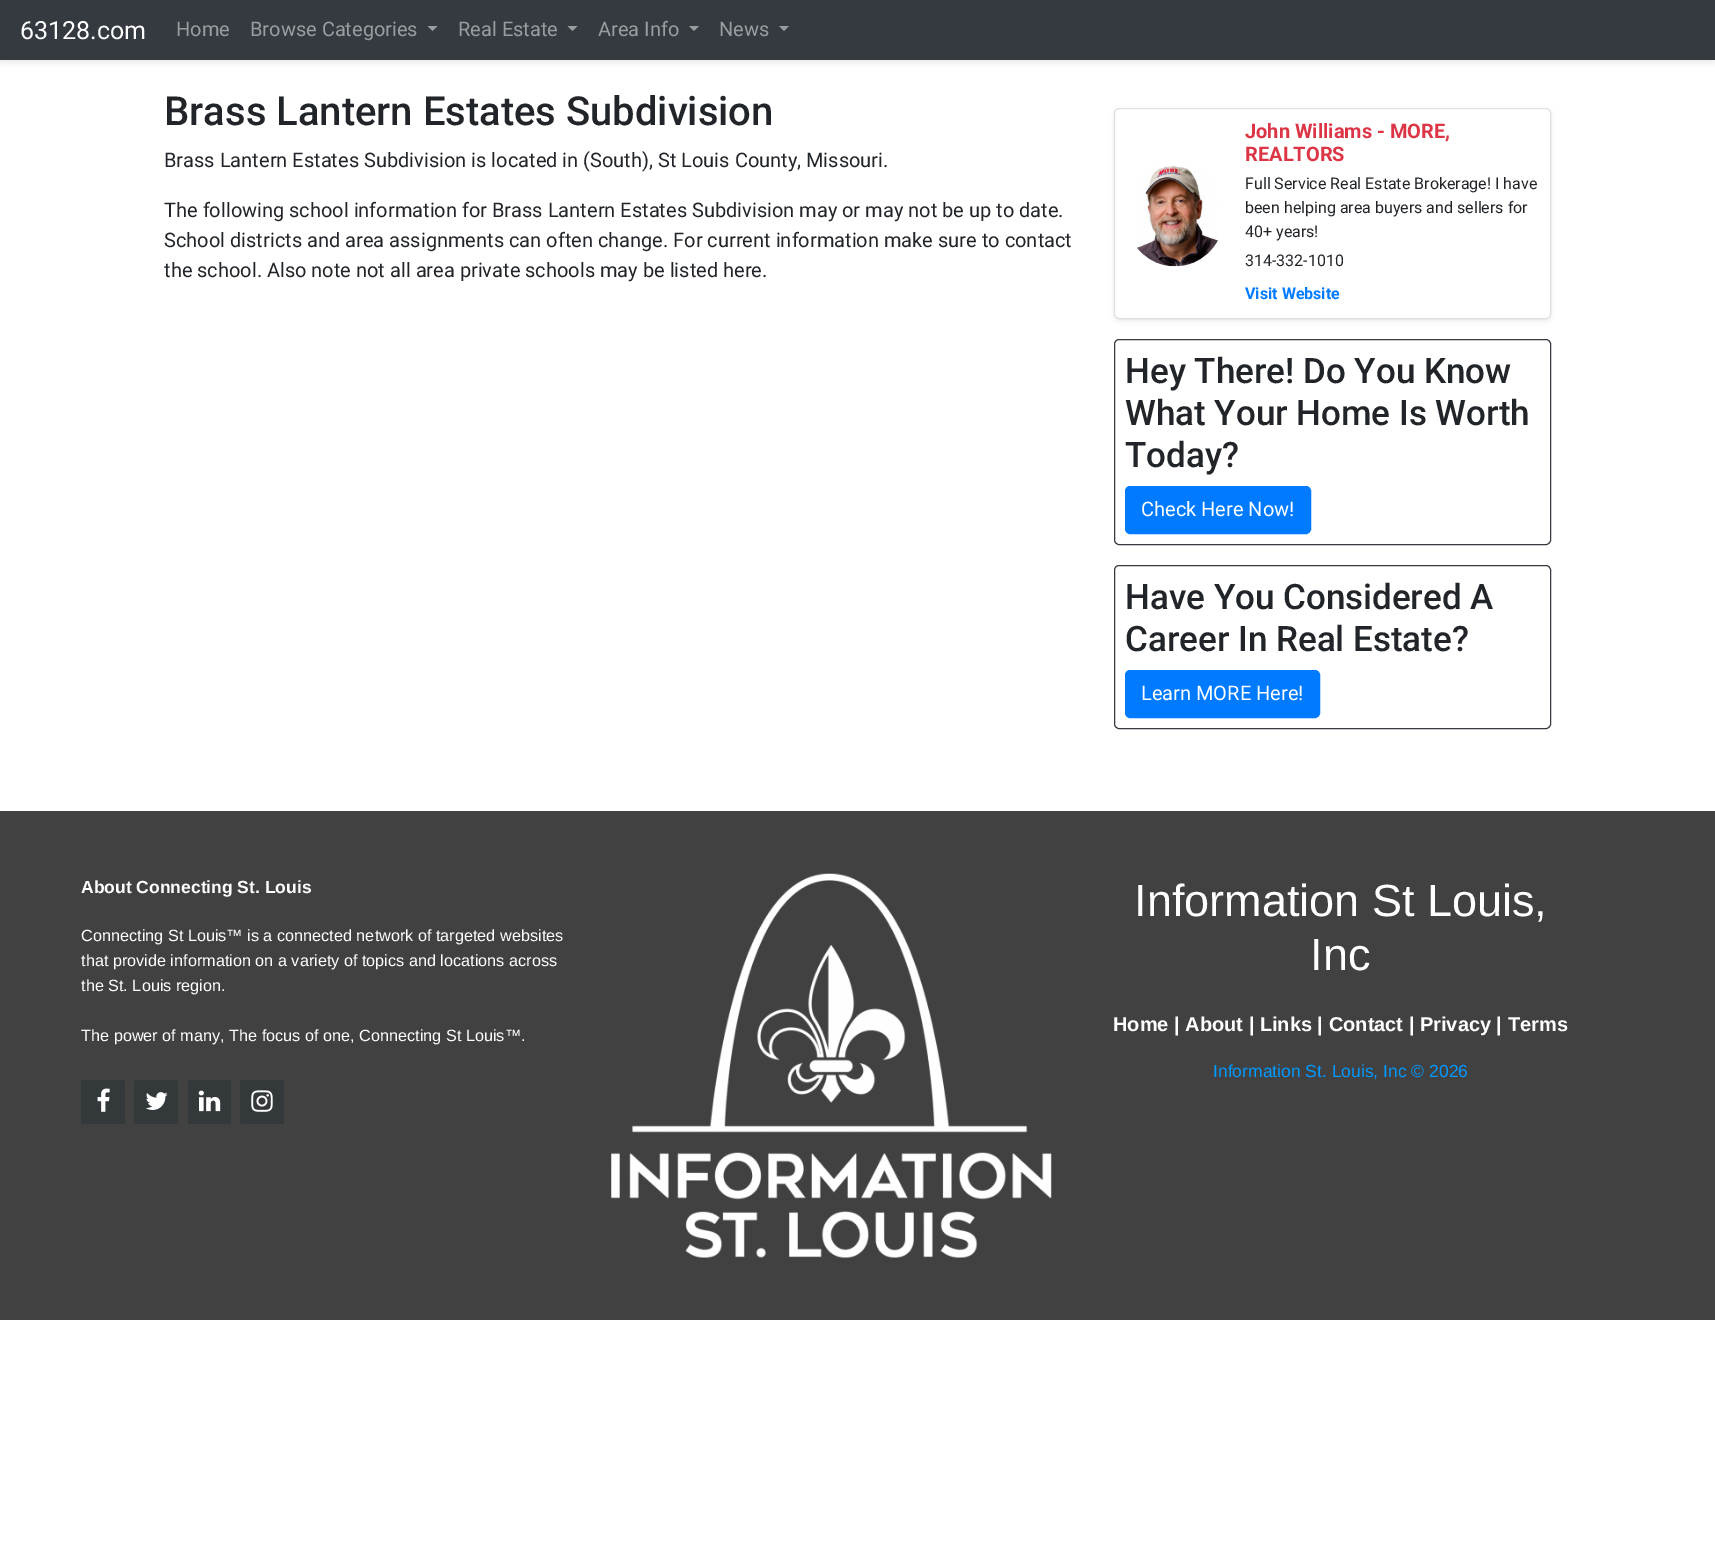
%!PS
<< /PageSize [1715 1545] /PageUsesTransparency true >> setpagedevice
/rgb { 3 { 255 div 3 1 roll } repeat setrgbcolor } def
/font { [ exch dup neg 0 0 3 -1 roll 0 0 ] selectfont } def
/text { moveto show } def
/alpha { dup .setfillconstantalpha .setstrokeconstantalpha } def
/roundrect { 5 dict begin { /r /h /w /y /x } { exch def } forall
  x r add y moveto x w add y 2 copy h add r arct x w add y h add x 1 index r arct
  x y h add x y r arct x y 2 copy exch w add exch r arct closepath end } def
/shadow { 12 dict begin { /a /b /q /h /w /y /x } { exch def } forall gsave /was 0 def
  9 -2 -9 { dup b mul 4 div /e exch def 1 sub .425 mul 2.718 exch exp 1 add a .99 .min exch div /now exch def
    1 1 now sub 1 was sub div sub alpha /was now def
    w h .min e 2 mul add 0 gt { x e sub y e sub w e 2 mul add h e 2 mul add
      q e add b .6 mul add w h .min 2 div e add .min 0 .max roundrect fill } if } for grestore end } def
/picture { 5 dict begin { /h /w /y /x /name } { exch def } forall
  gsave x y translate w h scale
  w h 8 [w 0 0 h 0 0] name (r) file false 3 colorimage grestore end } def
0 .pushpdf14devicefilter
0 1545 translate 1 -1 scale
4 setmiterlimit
255 255 255 rgb
0 0 1715 1545 rectfill
0 0 0 rgb
0 3 1715 60 0 2.5 0.07 shadow
52 58 64 rgb
0 0 1715 60 rectfill
154 157 160 rgb
427.5 26 moveto 10 0 rlineto -5 5 rlineto closepath fill
567.5 26 moveto 10 0 rlineto -5 5 rlineto closepath fill
689 26 moveto 10 0 rlineto -5 5 rlineto closepath fill
779 26 moveto 10 0 rlineto -5 5 rlineto closepath fill
0 0 0 rgb
1114 110 437 211 5 2.5 0.07 shadow
255 255 255 rgb
1114 108 437 211 5 roundrect fill
0.12 alpha
0 0 0 rgb
1114.5 108.5 436 210 4.5 roundrect stroke
1 alpha
(img_01.rgb) 1136 165 82 102 picture
52 58 64 rgb
1114.5 339.5 436 205 4.5 roundrect stroke
0 123 255 rgb
1125.5 486.5 185 47 4.5 roundrect gsave fill grestore
stroke
52 58 64 rgb
1114.5 565.5 436 163 4.5 roundrect stroke
0 123 255 rgb
1125.5 670.5 194 47 4.5 roundrect gsave fill grestore
stroke
65 65 65 rgb
0 811 1715 509 rectfill
51 56 59 rgb
81 1080 44 44 2.5 roundrect fill
(img_02.rgb) 97 1088 13 24 picture
134 1080 44 44 2.5 roundrect fill
(img_03.rgb) 145 1092 23 18 picture
188 1080 43 44 2.5 roundrect fill
(img_04.rgb) 198 1090 23 22 picture
240 1080 44 44 2.5 roundrect fill
(img_05.rgb) 251 1090 22 22 picture
(img_06.rgb) 611 873 441 385 picture
/Roboto-Regular 25 font
255 255 255 rgb
(63128.com) 20 39 text
/Roboto-Regular 20 font
154 157 160 rgb
(Home) 176 36 text
(Browse Categories) 250 36 text
(Real Estate) 458 36 text
(Area Info) 598 36 text
(News) 719 36 text
/Roboto-Medium 40 font
33 37 41 rgb
(Brass Lantern Estates Subdivision) 164 125 text
/Roboto-Regular 20 font
(Brass Lantern Estates Subdivision is located in \(South\), St Louis County, Missouri.) 164 167 text
(The following school information for Brass Lantern Estates Subdivision may or may not be up to date.) 164 217 text
(School districts and area assignments can often change. For current information make sure to contact) 164 247 text
(the school. Also note not all area private schools may be listed here.) 164 277 text
/Roboto-Bold 20 font
220 53 69 rgb
(John Williams - MORE,) 1245 138 text
(REALTORS) 1245 161 text
/Roboto-Regular 16 font
33 37 41 rgb
(Full Service Real Estate Brokerage! I have) 1245 189 text
(been helping area buyers and sellers for) 1245 213 text
(40+ years!) 1245 237 text
(314-332-1010) 1245 266 text
/Roboto-Bold 16 font
0 123 255 rgb
(Visit Website) 1245 299 text
/Roboto-Medium 35 font
33 37 41 rgb
(Hey There! Do You Know) 1125 383 text
(What Your Home Is Worth) 1125 425 text
(Today?) 1125 467 text
/Roboto-Regular 20 font
255 255 255 rgb
(Check Here Now!) 1141 516 text
/Roboto-Medium 35 font
33 37 41 rgb
(Have You Considered A) 1125 609 text
(Career In Real Estate?) 1125 651 text
/Roboto-Regular 20 font
255 255 255 rgb
(Learn MORE Here!) 1141 700 text
/LiberationSans-Bold 17.5 font
(About Connecting St. Louis) 81 893 text
/LiberationSans-Regular 16.25 font
(Connecting St Louis™ is a connected network of targeted websites) 81 941 text
(that provide information on a variety of topics and locations across) 81 966 text
(the St. Louis region.) 81 991 text
(The power of many, The focus of one, Connecting St Louis™.) 81 1041 text
/LiberationSans-Regular 45 font
(Information St Louis,) 1134 916 text
(Inc) 1310 970 text
/LiberationSans-Bold 20 font
(Home | About | Links | Contact | Privacy | Terms) 1113 1031 text
/LiberationSans-Regular 17.5 font
0 153 255 rgb
(Information St. Louis, Inc © 2026) 1213 1077 text
.poppdf14devicefilter showpage
